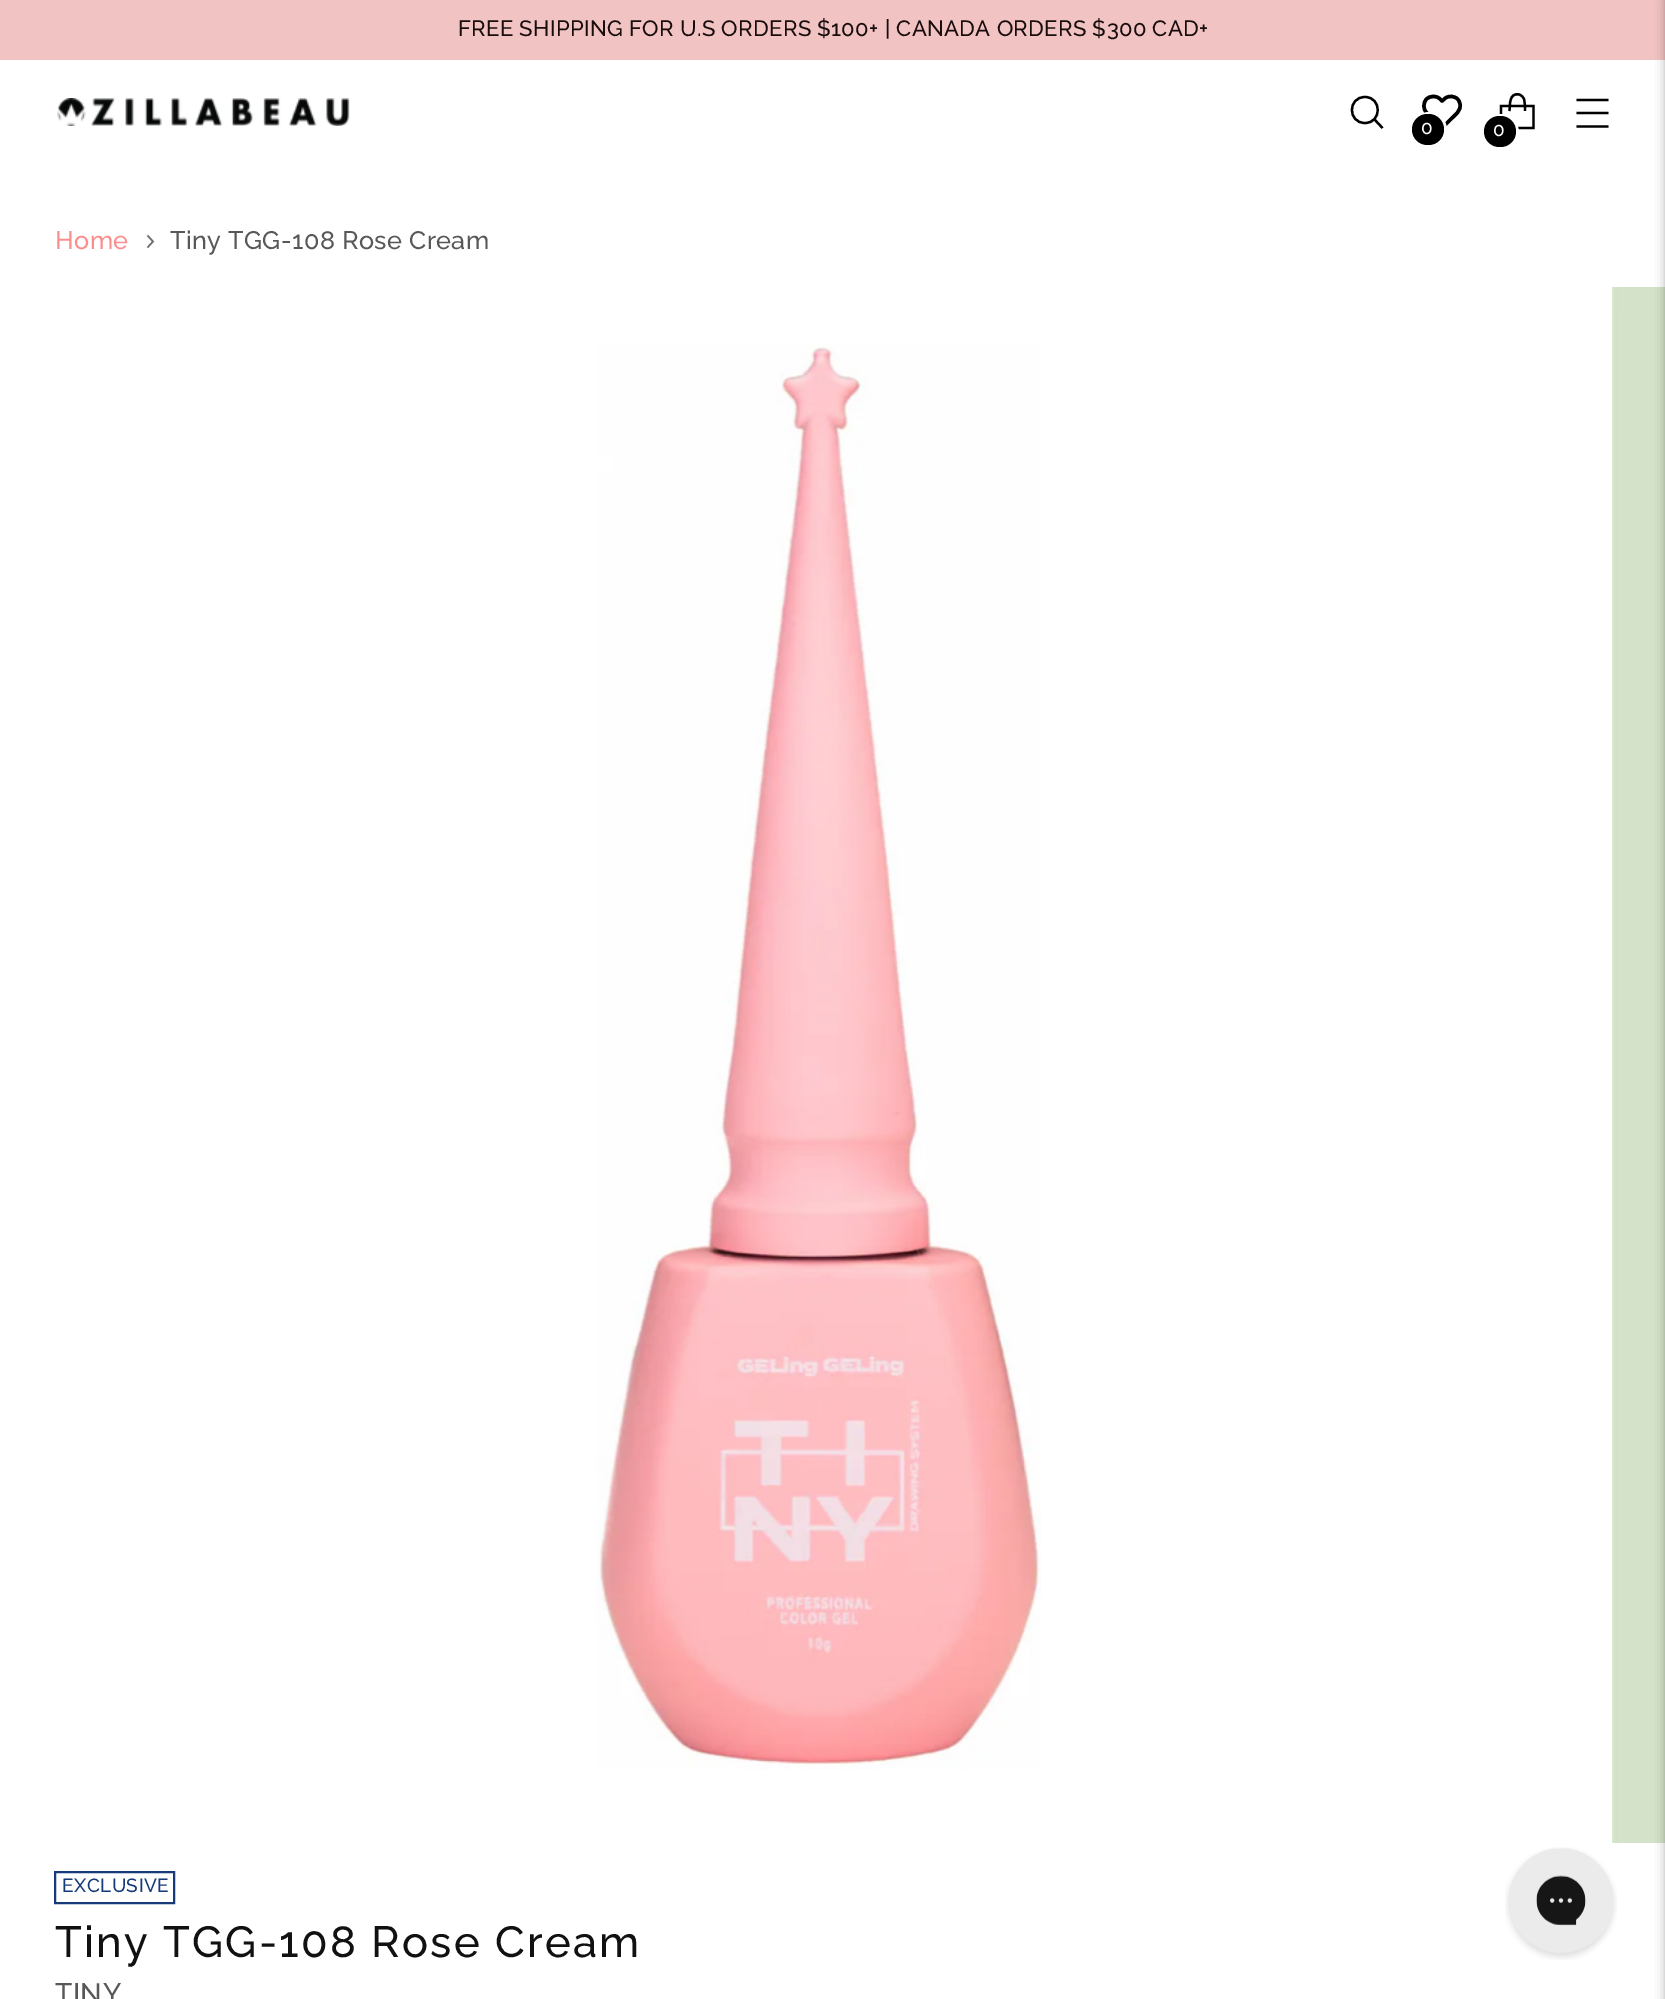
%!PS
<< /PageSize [1665 1999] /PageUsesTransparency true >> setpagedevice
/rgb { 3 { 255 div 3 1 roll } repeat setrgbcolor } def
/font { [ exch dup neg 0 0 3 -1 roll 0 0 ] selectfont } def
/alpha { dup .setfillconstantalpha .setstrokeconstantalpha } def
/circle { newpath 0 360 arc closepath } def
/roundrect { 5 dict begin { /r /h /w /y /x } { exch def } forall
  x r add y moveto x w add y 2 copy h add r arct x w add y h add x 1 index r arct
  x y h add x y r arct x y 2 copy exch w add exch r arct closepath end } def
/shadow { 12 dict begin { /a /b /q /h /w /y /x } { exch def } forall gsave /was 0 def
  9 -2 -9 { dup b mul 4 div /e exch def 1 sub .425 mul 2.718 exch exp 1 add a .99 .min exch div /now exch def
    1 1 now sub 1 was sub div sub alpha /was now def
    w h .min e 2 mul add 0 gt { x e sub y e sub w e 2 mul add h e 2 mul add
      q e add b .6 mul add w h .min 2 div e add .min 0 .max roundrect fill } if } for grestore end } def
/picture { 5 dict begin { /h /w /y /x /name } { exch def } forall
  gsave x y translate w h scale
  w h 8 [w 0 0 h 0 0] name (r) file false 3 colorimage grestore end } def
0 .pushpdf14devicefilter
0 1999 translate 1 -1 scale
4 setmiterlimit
255 255 255 rgb
0 0 1665 1999 rectfill
242 195 195 rgb
0 0 1665 60 rectfill
(img_01.rgb) 57 98 293 28 picture
0 0 0 rgb
2.3 setlinewidth
1 setlinecap
1365 123 moveto 17 0 17 -26 0 -26 rcurveto -17.5 0 -17.5 26 0 26 rcurveto closepath stroke
0 setlinecap
1374.5 119.5 moveto 8 8.5 rlineto stroke
3.5 setlinewidth
1 setlinecap
1 setlinejoin
1457.5 99 moveto -3 -3 -8.5 -3.5 -12 -1 rcurveto -3.5 3 rlineto -2 -2 rlineto -3.5 -3.5 -9.5 -3.5 -13.5 0 rcurveto -3.5 4 -3.5 10 0 13.5 rcurveto 15.5 15.5 rlineto 9 -9 rlineto 4 -4 10.5 -8.5 9 -15 rcurveto -0.5 -2 -1 -3.5 -2.5 -5 rcurveto closepath stroke
255 255 255 rgb
3 setlinewidth
0 setlinecap
0 setlinejoin
1412.5 113.5 33 34 16.5 roundrect stroke
0 0 0 rgb
1412 114 32 31 15.5 roundrect fill
2.3 setlinewidth
2 setlinejoin
1525 111 moveto 0 -4 0 -8 -1 -12 rcurveto -1 -2 -2.5 -4 -5 -4.5 rcurveto -10 -2 -9 10.5 -9.5 16.5 rcurveto stroke
0 setlinejoin
1533.5 128 moveto 0 -22 rlineto -32.5 0 rlineto 0 22 rlineto closepath stroke
255 255 255 rgb
3 setlinewidth
1500.5 132.5 17 circle stroke
0 0 0 rgb
1484 116 32 31 15.5 roundrect fill
2.3 setlinewidth
1576.5 113 moveto 32 0 rlineto 1576.5 100 moveto 32 0 rlineto 1576.5 126.5 moveto 32 0 rlineto stroke
112 112 112 rgb
1.6 setlinewidth
147.5 247.5 moveto 5.5 -6 rlineto -5.5 -6 rlineto stroke
(img_02.rgb) 596 344 445 1426 picture
(img_03.rgb) 1612 287 53 1556 picture
22 59 120 rgb
2 setlinewidth
55 1872 119 31 rectstroke
(img_04.rgb) 1505 1847 112 113 picture
0 0 0 rgb
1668 0 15 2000 0 6 0.5 shadow
/Raleway-Medium 22.05 font
24 12 12 rgb
458 36 moveto 0.33 0 (FREE SHIPPING FOR U.S ORDERS $100+ | CANADA ORDERS $300 CAD+) ashow
/Raleway-Medium 19 font
255 255 255 rgb
1421 134 moveto 0.5 0 (0) ashow
1493 136 moveto 0.5 0 (0) ashow
/Raleway-Medium 25.2 font
253 141 141 rgb
55 249 moveto 0.4 0 (Home) ashow
88 88 88 rgb
170 249 moveto 0.4 0 (Tiny TGG-108 Rose Cream) ashow
/Raleway-Medium 19 font
22 59 120 rgb
62 1892 moveto 0.5 0 (EXCLUSIVE) ashow
/Raleway-Medium 43.5 font
17 17 17 rgb
55 1957 moveto 2.2 0 (Tiny TGG-108 Rose Cream) ashow
/Raleway-Medium 28 font
88 88 88 rgb
55 2003 moveto 0.5 0 (TINY) ashow
.poppdf14devicefilter showpage
